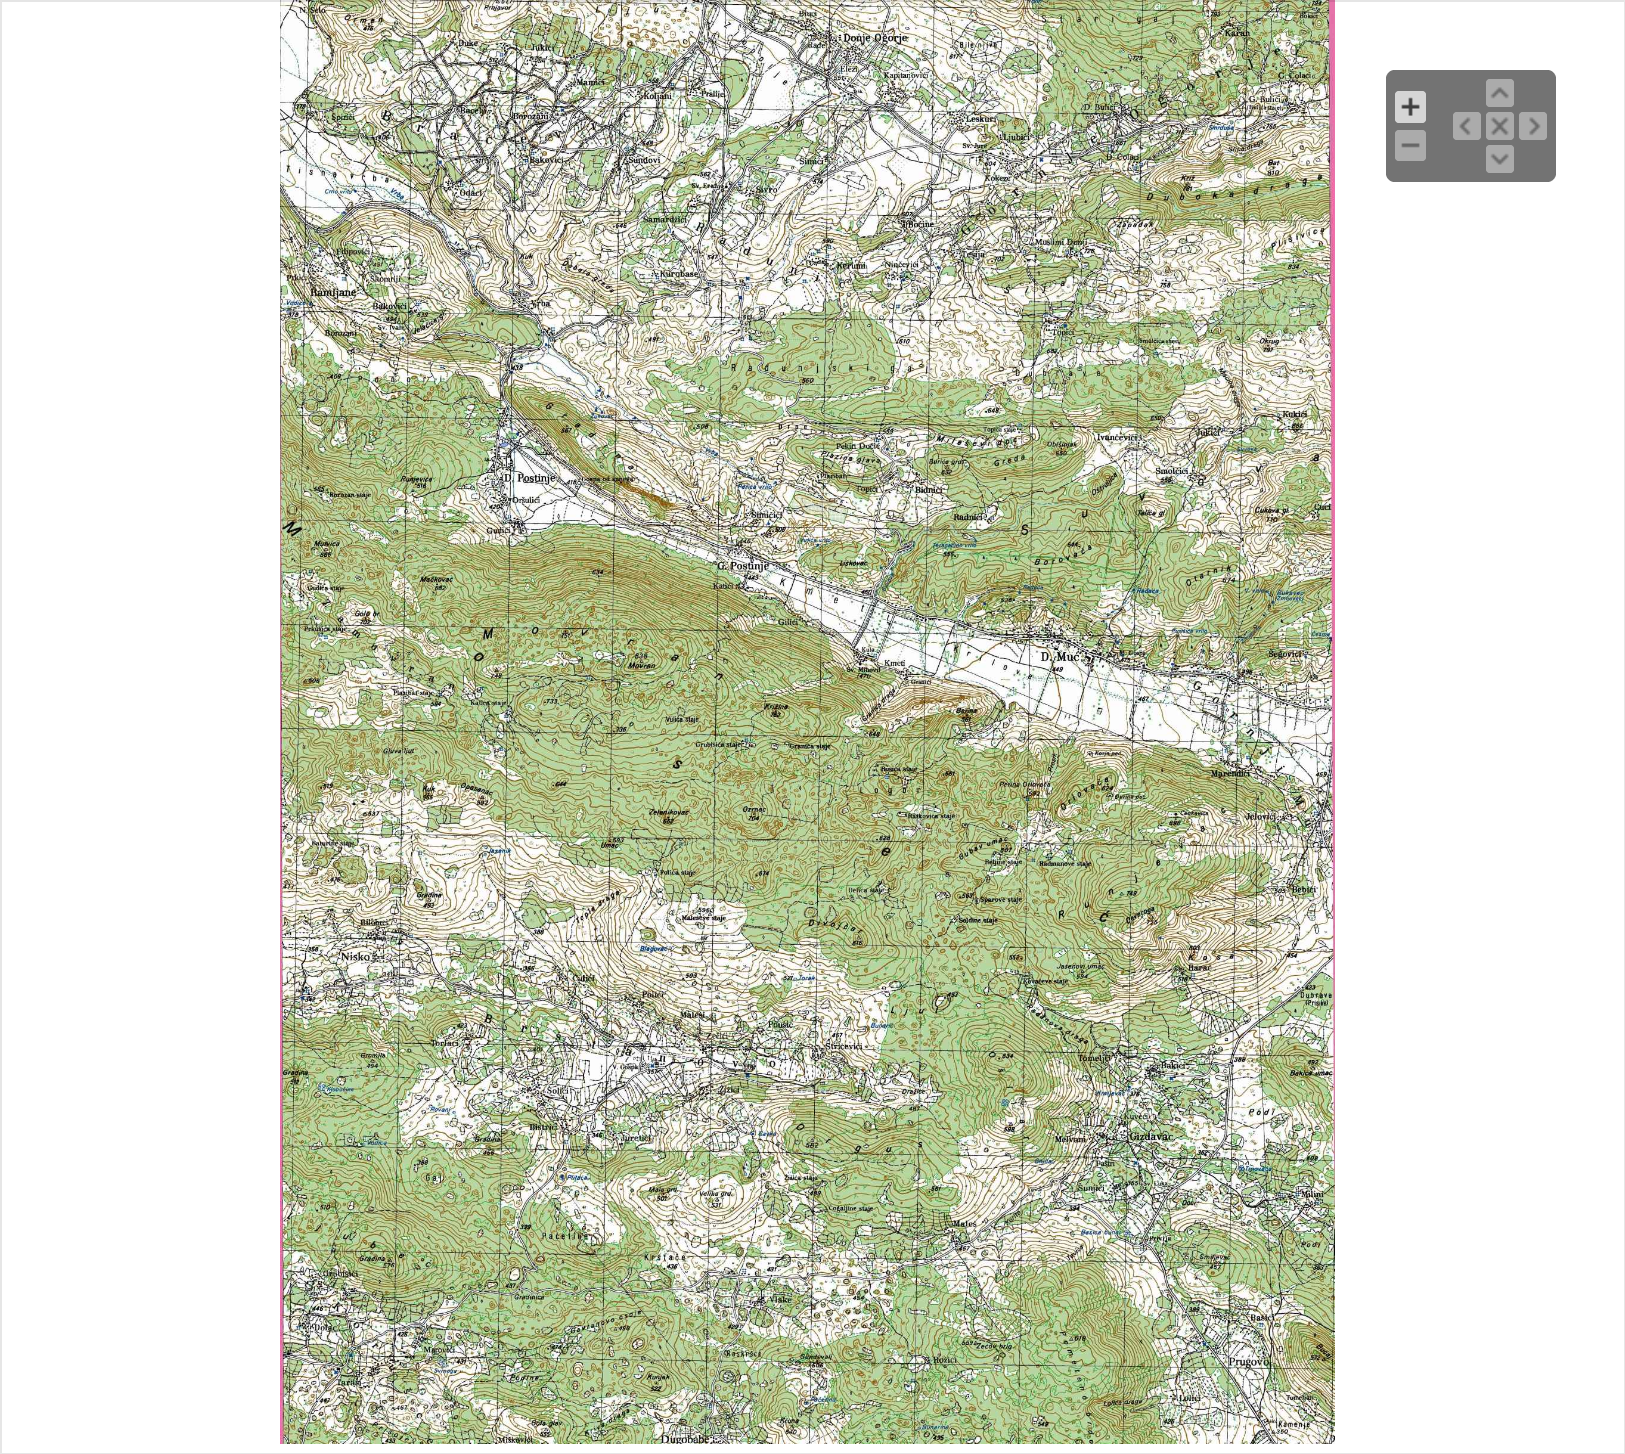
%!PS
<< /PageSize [1625 1454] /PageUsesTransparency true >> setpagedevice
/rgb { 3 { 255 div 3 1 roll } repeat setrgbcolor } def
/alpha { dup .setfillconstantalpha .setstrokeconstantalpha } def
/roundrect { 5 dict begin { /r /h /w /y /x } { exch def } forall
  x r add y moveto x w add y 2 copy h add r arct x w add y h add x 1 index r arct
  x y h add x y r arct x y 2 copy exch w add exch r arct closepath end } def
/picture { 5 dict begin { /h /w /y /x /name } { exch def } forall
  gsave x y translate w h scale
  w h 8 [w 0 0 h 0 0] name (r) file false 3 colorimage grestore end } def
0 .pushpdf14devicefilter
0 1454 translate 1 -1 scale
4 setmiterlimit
255 255 255 rgb
0 0 1625 1454 rectfill
230 230 230 rgb
0 0 2 1454 rectfill
(img_01.rgb) 280 0 1055 1444 picture
0.1 alpha
0 0 0 rgb
2 0 1622 2 rectfill
1 alpha
115 115 115 rgb
1386 70 170 112 9 roundrect fill
213 213 213 rgb
1395 91 31 32 4 roundrect fill
(img_02.rgb) 1401 97 19 19 picture
171 171 171 rgb
1486 79 28 28 4 roundrect fill
(img_03.rgb) 1490 87 19 12 picture
1453 112 28 28 4 roundrect fill
(img_04.rgb) 1459 117 12 19 picture
1486 112 28 28 4 roundrect fill
(img_05.rgb) 1490 117 19 19 picture
1519 112 28 28 4 roundrect fill
(img_06.rgb) 1529 117 12 19 picture
1395 130 31 31 4 roundrect fill
(img_07.rgb) 1401 143 19 5 picture
1486 145 28 28 4 roundrect fill
(img_08.rgb) 1490 153 19 12 picture
230 230 230 rgb
1624 0 1 1454 rectfill
2 1453 1622 1 rectfill
.poppdf14devicefilter showpage
